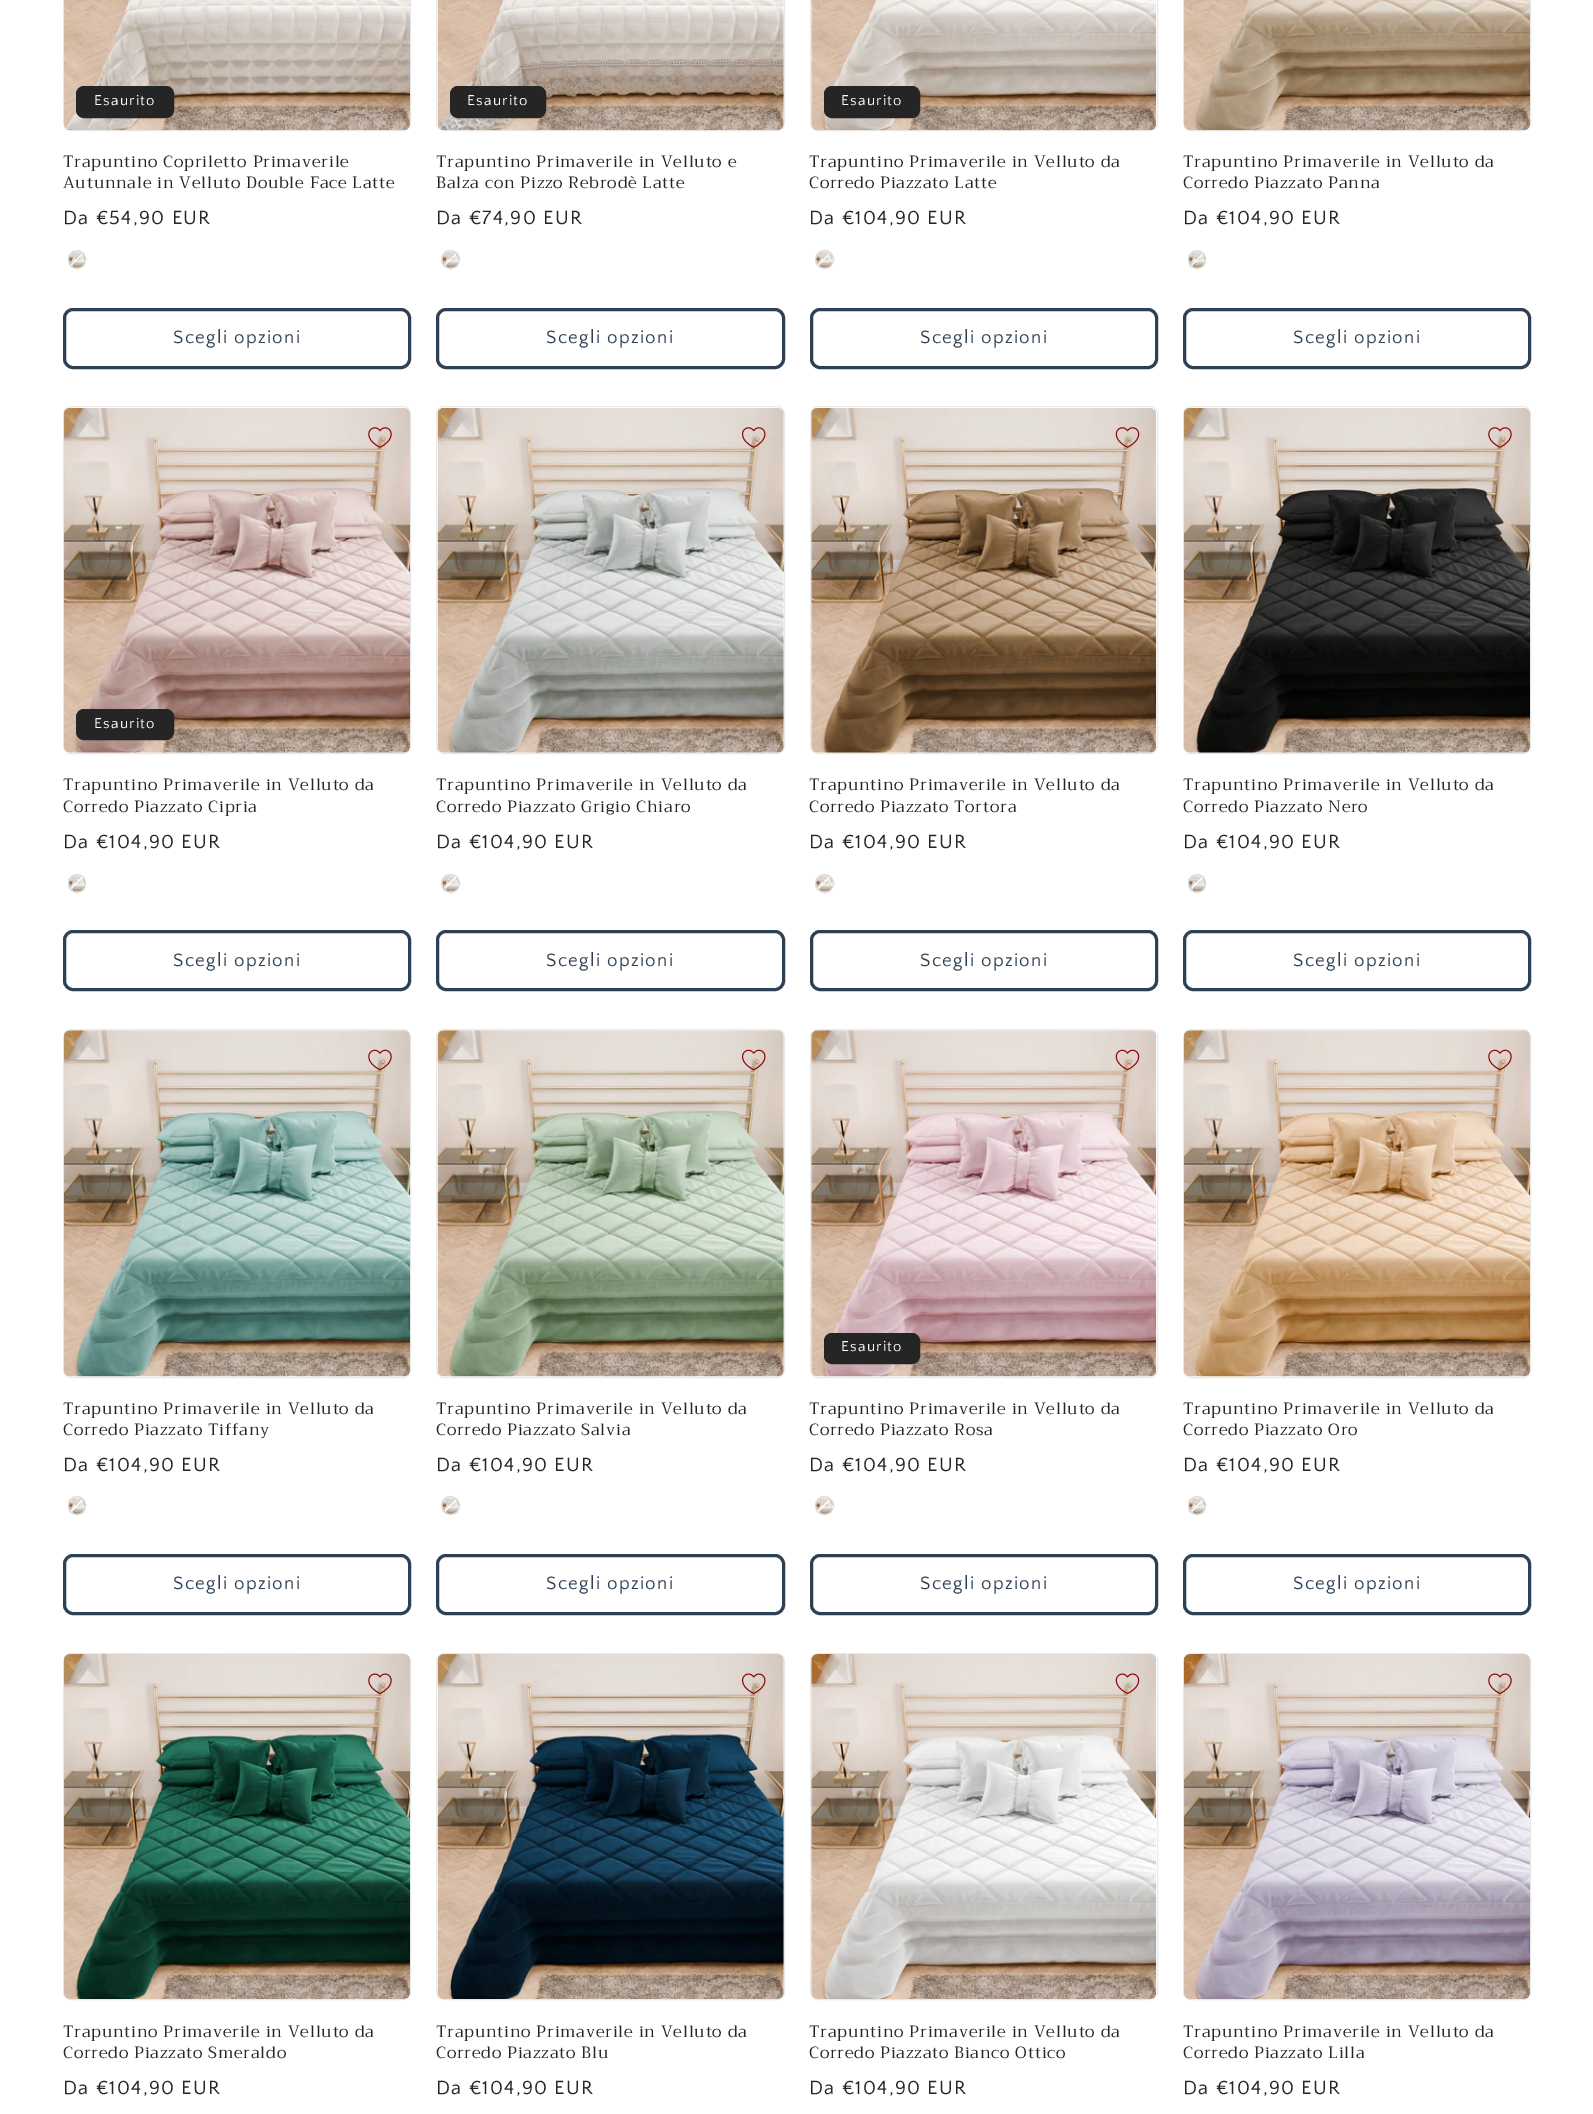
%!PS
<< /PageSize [1593 2114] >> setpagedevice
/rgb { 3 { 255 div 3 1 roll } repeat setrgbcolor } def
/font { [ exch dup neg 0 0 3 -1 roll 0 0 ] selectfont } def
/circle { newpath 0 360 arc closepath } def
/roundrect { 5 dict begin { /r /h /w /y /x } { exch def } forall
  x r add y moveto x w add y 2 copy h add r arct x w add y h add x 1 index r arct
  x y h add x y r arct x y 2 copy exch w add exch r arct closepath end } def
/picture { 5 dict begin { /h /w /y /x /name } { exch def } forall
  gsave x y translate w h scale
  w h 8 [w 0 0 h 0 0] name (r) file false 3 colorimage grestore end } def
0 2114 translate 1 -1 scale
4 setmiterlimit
255 255 255 rgb
0 0 1593 2114 rectfill
233 233 233 rgb
63.5 -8.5 347 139 7.5 roundrect stroke
(img_01.rgb) 63 0 347 131 picture
37 37 37 rgb
76.5 86.5 97 31 7.5 roundrect gsave fill grestore
stroke
(img_02.rgb) 68 251 17 17 picture
221 221 221 rgb
68.5 250.5 17 18 8.5 roundrect stroke
255 255 255 rgb
82 253.5 moveto 1 0.5 rlineto -11.5 11.5 rlineto -1 -0.5 rlineto closepath fill
46 64 83 rgb
3 setlinewidth
64.5 309.5 345 58 8.5 roundrect stroke
233 233 233 rgb
1 setlinewidth
436.5 -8.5 348 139 7.5 roundrect stroke
(img_03.rgb) 437 0 347 131 picture
37 37 37 rgb
450.5 86.5 95 31 7.5 roundrect gsave fill grestore
stroke
(img_04.rgb) 442 251 17 17 picture
221 221 221 rgb
450.5 259.5 9 circle stroke
255 255 255 rgb
455.5 253.5 moveto 1 0.5 rlineto -11.5 11.5 rlineto -0.5 -1 rlineto closepath fill
46 64 83 rgb
3 setlinewidth
437.5 309.5 346 58 8.5 roundrect stroke
233 233 233 rgb
1 setlinewidth
810.5 -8.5 347 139 7.5 roundrect stroke
(img_05.rgb) 811 0 346 131 picture
37 37 37 rgb
824.5 86.5 95 31 7.5 roundrect gsave fill grestore
stroke
(img_06.rgb) 816 251 17 17 picture
221 221 221 rgb
824.5 259.5 9 circle stroke
255 255 255 rgb
829 253.5 moveto 1 0.5 rlineto -11.5 11.5 rlineto -1 -0.5 rlineto closepath fill
46 64 83 rgb
3 setlinewidth
811.5 309.5 345 58 8.5 roundrect stroke
233 233 233 rgb
1 setlinewidth
1183.5 -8.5 347 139 7.5 roundrect stroke
(img_07.rgb) 1183 0 347 131 picture
(img_08.rgb) 1188 251 17 17 picture
221 221 221 rgb
1188.5 250.5 17 18 8.5 roundrect stroke
255 255 255 rgb
1202.5 253.5 moveto 1 0.5 rlineto -11.5 11.5 rlineto -1 -0.5 rlineto closepath fill
46 64 83 rgb
3 setlinewidth
1184.5 309.5 345 58 8.5 roundrect stroke
233 233 233 rgb
1 setlinewidth
63.5 406.5 347 347 7.5 roundrect stroke
(img_09.rgb) 63 407 347 346 picture
37 37 37 rgb
76.5 709.5 97 30 7.5 roundrect gsave fill grestore
stroke
(img_10.rgb) 368 427 24 21 picture
(img_11.rgb) 68 875 17 17 picture
221 221 221 rgb
68.5 874.5 17 18 8.5 roundrect stroke
255 255 255 rgb
71.5 889 moveto -1 -1 rlineto 11.5 -11.5 rlineto 1 1 rlineto closepath fill
46 64 83 rgb
3 setlinewidth
64.5 931.5 345 58 8.5 roundrect stroke
233 233 233 rgb
1 setlinewidth
436.5 406.5 348 347 7.5 roundrect stroke
(img_12.rgb) 437 407 347 346 picture
(img_13.rgb) 742 427 24 21 picture
(img_14.rgb) 442 875 17 17 picture
221 221 221 rgb
450.5 883.5 9 circle stroke
255 255 255 rgb
455.5 876.5 moveto 1 1 rlineto -11 11 rlineto -1 -1 rlineto closepath fill
46 64 83 rgb
3 setlinewidth
437.5 931.5 346 58 8.5 roundrect stroke
233 233 233 rgb
1 setlinewidth
810.5 406.5 347 347 7.5 roundrect stroke
(img_15.rgb) 811 407 346 346 picture
(img_16.rgb) 1115 427 25 21 picture
(img_17.rgb) 816 875 17 17 picture
221 221 221 rgb
824.5 883.5 9 circle stroke
255 255 255 rgb
829 876.5 moveto 1 1 rlineto -11.5 11.5 rlineto -1 -1 rlineto closepath fill
46 64 83 rgb
3 setlinewidth
811.5 931.5 345 58 8.5 roundrect stroke
233 233 233 rgb
1 setlinewidth
1183.5 406.5 347 347 7.5 roundrect stroke
(img_18.rgb) 1183 407 347 346 picture
(img_19.rgb) 1488 427 24 21 picture
(img_11.rgb) 1188 875 17 17 picture
221 221 221 rgb
1188.5 874.5 17 18 8.5 roundrect stroke
255 255 255 rgb
1202 877 moveto 1 1 rlineto -11 11 rlineto -1 -1 rlineto closepath fill
46 64 83 rgb
3 setlinewidth
1184.5 931.5 345 58 8.5 roundrect stroke
233 233 233 rgb
1 setlinewidth
63.5 1029.5 347 348 7.5 roundrect stroke
(img_20.rgb) 63 1030 347 347 picture
(img_21.rgb) 368 1049 24 22 picture
(img_22.rgb) 68 1497 17 17 picture
221 221 221 rgb
68.5 1496.5 17 18 8.5 roundrect stroke
255 255 255 rgb
71.5 1512 moveto -1 -1 rlineto 11.5 -11.5 rlineto 1 1 rlineto closepath fill
46 64 83 rgb
3 setlinewidth
64.5 1555.5 345 58 8.5 roundrect stroke
233 233 233 rgb
1 setlinewidth
436.5 1029.5 348 348 7.5 roundrect stroke
(img_23.rgb) 437 1030 347 347 picture
(img_24.rgb) 742 1049 24 22 picture
(img_25.rgb) 442 1497 17 17 picture
221 221 221 rgb
450.5 1505.5 9 circle stroke
255 255 255 rgb
455.5 1499.5 moveto 1 1 rlineto -11 11 rlineto -1 -1 rlineto closepath fill
46 64 83 rgb
3 setlinewidth
437.5 1555.5 346 58 8.5 roundrect stroke
233 233 233 rgb
1 setlinewidth
810.5 1029.5 347 348 7.5 roundrect stroke
(img_26.rgb) 811 1030 346 347 picture
37 37 37 rgb
824.5 1333.5 95 30 7.5 roundrect gsave fill grestore
stroke
(img_27.rgb) 1115 1049 25 22 picture
(img_28.rgb) 816 1497 17 17 picture
221 221 221 rgb
824.5 1505.5 9 circle stroke
255 255 255 rgb
829 1499.5 moveto 1 1 rlineto -11.5 11.5 rlineto -1 -1 rlineto closepath fill
46 64 83 rgb
3 setlinewidth
811.5 1555.5 345 58 8.5 roundrect stroke
233 233 233 rgb
1 setlinewidth
1183.5 1029.5 347 348 7.5 roundrect stroke
(img_29.rgb) 1183 1030 347 347 picture
(img_30.rgb) 1488 1049 24 22 picture
(img_31.rgb) 1188 1497 17 17 picture
221 221 221 rgb
1188.5 1496.5 17 18 8.5 roundrect stroke
255 255 255 rgb
1202 1500 moveto 1 1 rlineto -11 11 rlineto -1 -1 rlineto closepath fill
46 64 83 rgb
3 setlinewidth
1184.5 1555.5 345 58 8.5 roundrect stroke
233 233 233 rgb
1 setlinewidth
63.5 1653.5 347 346 7.5 roundrect stroke
(img_32.rgb) 63 1654 347 345 picture
(img_33.rgb) 368 1673 24 21 picture
436.5 1653.5 348 346 7.5 roundrect stroke
(img_34.rgb) 437 1654 347 345 picture
(img_35.rgb) 742 1673 24 22 picture
810.5 1653.5 347 346 7.5 roundrect stroke
(img_36.rgb) 811 1654 346 345 picture
(img_37.rgb) 1115 1673 25 22 picture
1183.5 1653.5 347 346 7.5 roundrect stroke
(img_38.rgb) 1183 1654 347 345 picture
(img_39.rgb) 1488 1673 24 21 picture
/QuattrocentoSans-Regular 15 font
255 255 255 rgb
94 105 moveto 1.25 0 (Esaurito) ashow
/Trirong-Regular 16.25 font
37 37 37 rgb
63 167 moveto 0.75 0 (Trapuntino Copriletto Primaverile) ashow
63 188 moveto 0.75 0 (Autunnale in Velluto Double Face Latte) ashow
/QuattrocentoSans-Regular 20 font
63 224 moveto 1.25 0 (Da €54,90 EUR) ashow
/QuattrocentoSans-Regular 18.75 font
46 64 83 rgb
173 343 moveto 1.25 0 (Scegli opzioni) ashow
/QuattrocentoSans-Regular 15 font
255 255 255 rgb
467 105 moveto 1.25 0 (Esaurito) ashow
/Trirong-Regular 16.25 font
37 37 37 rgb
436 167 moveto 0.75 0 (Trapuntino Primaverile in Velluto e) ashow
436 188 moveto 0.75 0 (Balza con Pizzo Rebrodè Latte) ashow
/QuattrocentoSans-Regular 20 font
436 224 moveto 1.25 0 (Da €74,90 EUR) ashow
/QuattrocentoSans-Regular 18.75 font
46 64 83 rgb
546 343 moveto 1.25 0 (Scegli opzioni) ashow
/QuattrocentoSans-Regular 15 font
255 255 255 rgb
841 105 moveto 1.25 0 (Esaurito) ashow
/Trirong-Regular 16.25 font
37 37 37 rgb
809 167 moveto 0.75 0 (Trapuntino Primaverile in Velluto da) ashow
809 188 moveto 0.75 0 (Corredo Piazzato Latte) ashow
/QuattrocentoSans-Regular 20 font
809 224 moveto 1.25 0 (Da €104,90 EUR) ashow
/QuattrocentoSans-Regular 18.75 font
46 64 83 rgb
920 343 moveto 1.25 0 (Scegli opzioni) ashow
/Trirong-Regular 16.25 font
37 37 37 rgb
1183 167 moveto 0.75 0 (Trapuntino Primaverile in Velluto da) ashow
1183 188 moveto 0.75 0 (Corredo Piazzato Panna) ashow
/QuattrocentoSans-Regular 20 font
1183 224 moveto 1.25 0 (Da €104,90 EUR) ashow
/QuattrocentoSans-Regular 18.75 font
46 64 83 rgb
1293 343 moveto 1.25 0 (Scegli opzioni) ashow
/QuattrocentoSans-Regular 15 font
255 255 255 rgb
94 728 moveto 1.25 0 (Esaurito) ashow
/Trirong-Regular 16.25 font
37 37 37 rgb
63 790 moveto 0.75 0 (Trapuntino Primaverile in Velluto da) ashow
63 812 moveto 0.75 0 (Corredo Piazzato Cipria) ashow
/QuattrocentoSans-Regular 20 font
63 848 moveto 1.25 0 (Da €104,90 EUR) ashow
/QuattrocentoSans-Regular 18.75 font
46 64 83 rgb
173 966 moveto 1.25 0 (Scegli opzioni) ashow
/Trirong-Regular 16.25 font
37 37 37 rgb
436 790 moveto 0.75 0 (Trapuntino Primaverile in Velluto da) ashow
436 812 moveto 0.75 0 (Corredo Piazzato Grigio Chiaro) ashow
/QuattrocentoSans-Regular 20 font
436 848 moveto 1.25 0 (Da €104,90 EUR) ashow
/QuattrocentoSans-Regular 18.75 font
46 64 83 rgb
546 966 moveto 1.25 0 (Scegli opzioni) ashow
/Trirong-Regular 16.25 font
37 37 37 rgb
809 790 moveto 0.75 0 (Trapuntino Primaverile in Velluto da) ashow
809 812 moveto 0.75 0 (Corredo Piazzato Tortora) ashow
/QuattrocentoSans-Regular 20 font
809 848 moveto 1.25 0 (Da €104,90 EUR) ashow
/QuattrocentoSans-Regular 18.75 font
46 64 83 rgb
920 966 moveto 1.25 0 (Scegli opzioni) ashow
/Trirong-Regular 16.25 font
37 37 37 rgb
1183 790 moveto 0.75 0 (Trapuntino Primaverile in Velluto da) ashow
1183 812 moveto 0.75 0 (Corredo Piazzato Nero) ashow
/QuattrocentoSans-Regular 20 font
1183 848 moveto 1.25 0 (Da €104,90 EUR) ashow
/QuattrocentoSans-Regular 18.75 font
46 64 83 rgb
1293 966 moveto 1.25 0 (Scegli opzioni) ashow
/Trirong-Regular 16.25 font
37 37 37 rgb
63 1414 moveto 0.75 0 (Trapuntino Primaverile in Velluto da) ashow
63 1435 moveto 0.75 0 (Corredo Piazzato Tiffany) ashow
/QuattrocentoSans-Regular 20 font
63 1471 moveto 1.25 0 (Da €104,90 EUR) ashow
/QuattrocentoSans-Regular 18.75 font
46 64 83 rgb
173 1589 moveto 1.25 0 (Scegli opzioni) ashow
/Trirong-Regular 16.25 font
37 37 37 rgb
436 1414 moveto 0.75 0 (Trapuntino Primaverile in Velluto da) ashow
436 1435 moveto 0.75 0 (Corredo Piazzato Salvia) ashow
/QuattrocentoSans-Regular 20 font
436 1471 moveto 1.25 0 (Da €104,90 EUR) ashow
/QuattrocentoSans-Regular 18.75 font
46 64 83 rgb
546 1589 moveto 1.25 0 (Scegli opzioni) ashow
/QuattrocentoSans-Regular 15 font
255 255 255 rgb
841 1351 moveto 1.25 0 (Esaurito) ashow
/Trirong-Regular 16.25 font
37 37 37 rgb
809 1414 moveto 0.75 0 (Trapuntino Primaverile in Velluto da) ashow
809 1435 moveto 0.75 0 (Corredo Piazzato Rosa) ashow
/QuattrocentoSans-Regular 20 font
809 1471 moveto 1.25 0 (Da €104,90 EUR) ashow
/QuattrocentoSans-Regular 18.75 font
46 64 83 rgb
920 1589 moveto 1.25 0 (Scegli opzioni) ashow
/Trirong-Regular 16.25 font
37 37 37 rgb
1183 1414 moveto 0.75 0 (Trapuntino Primaverile in Velluto da) ashow
1183 1435 moveto 0.75 0 (Corredo Piazzato Oro) ashow
/QuattrocentoSans-Regular 20 font
1183 1471 moveto 1.25 0 (Da €104,90 EUR) ashow
/QuattrocentoSans-Regular 18.75 font
46 64 83 rgb
1293 1589 moveto 1.25 0 (Scegli opzioni) ashow
/Trirong-Regular 16.25 font
37 37 37 rgb
63 2037 moveto 0.75 0 (Trapuntino Primaverile in Velluto da) ashow
63 2058 moveto 0.75 0 (Corredo Piazzato Smeraldo) ashow
/QuattrocentoSans-Regular 20 font
63 2094 moveto 1.25 0 (Da €104,90 EUR) ashow
/Trirong-Regular 16.25 font
436 2037 moveto 0.75 0 (Trapuntino Primaverile in Velluto da) ashow
436 2058 moveto 0.75 0 (Corredo Piazzato Blu) ashow
/QuattrocentoSans-Regular 20 font
436 2094 moveto 1.25 0 (Da €104,90 EUR) ashow
/Trirong-Regular 16.25 font
809 2037 moveto 0.75 0 (Trapuntino Primaverile in Velluto da) ashow
809 2058 moveto 0.75 0 (Corredo Piazzato Bianco Ottico) ashow
/QuattrocentoSans-Regular 20 font
809 2094 moveto 1.25 0 (Da €104,90 EUR) ashow
/Trirong-Regular 16.25 font
1183 2037 moveto 0.75 0 (Trapuntino Primaverile in Velluto da) ashow
1183 2058 moveto 0.75 0 (Corredo Piazzato Lilla) ashow
/QuattrocentoSans-Regular 20 font
1183 2094 moveto 1.25 0 (Da €104,90 EUR) ashow
showpage
